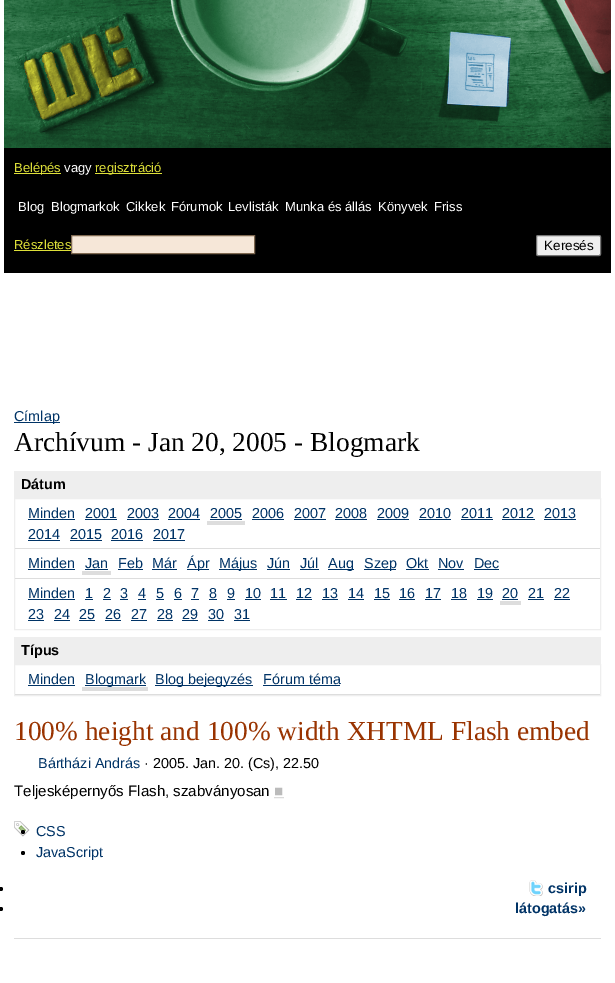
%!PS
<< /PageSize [615 983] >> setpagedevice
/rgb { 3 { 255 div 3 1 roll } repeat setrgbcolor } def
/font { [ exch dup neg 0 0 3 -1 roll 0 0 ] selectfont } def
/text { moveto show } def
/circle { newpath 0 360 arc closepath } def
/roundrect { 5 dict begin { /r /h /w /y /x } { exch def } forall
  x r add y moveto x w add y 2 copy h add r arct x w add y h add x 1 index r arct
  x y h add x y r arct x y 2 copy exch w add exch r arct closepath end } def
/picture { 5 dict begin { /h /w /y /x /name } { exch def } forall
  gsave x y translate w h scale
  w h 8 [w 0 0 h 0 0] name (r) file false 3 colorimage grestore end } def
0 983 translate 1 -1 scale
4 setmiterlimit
255 255 255 rgb
0 0 615 983 rectfill
0 0 0 rgb
4 148 607 125 rectfill
(img_01.rgb) 4 0 607 148 picture
222 224 57 rgb
14 173 47 1 rectfill
95 173 67 1 rectfill
14 250 57 1 rectfill
246 231 216 rgb
71.5 235.5 moveto 183 0 rlineto 0 18 rlineto -183 0 rlineto closepath gsave fill grestore
126 104 80 rgb
stroke
239 239 239 rgb
536.5 235.5 64 20 1.5 roundrect gsave fill grestore
118 118 118 rgb
stroke
0 51 102 rgb
14 422 46 1 rectfill
238 238 238 rgb
14 471 587 27 rectfill
14.5 498.5 586 131 rectstroke
221 221 221 rgb
15 548 585 1 rectfill
0 51 102 rgb
28 519 47 1 rectfill
85 519 32 1 rectfill
127 519 32 1 rectfill
168 519 32 1 rectfill
221 221 221 rgb
207 521 38 4 rectfill
0 51 102 rgb
210 519 32 1 rectfill
252 519 32 1 rectfill
294 519 32 1 rectfill
335 519 32 1 rectfill
377 519 32 1 rectfill
419 519 32 1 rectfill
461 519 32 1 rectfill
502 519 33 1 rectfill
544 519 32 1 rectfill
28 540 32 1 rectfill
70 540 32 1 rectfill
111 540 32 1 rectfill
153 540 32 1 rectfill
221 221 221 rgb
15 578 585 1 rectfill
0 51 102 rgb
28 569 47 1 rectfill
221 221 221 rgb
82 571 29 4 rectfill
0 51 102 rgb
85 569 23 1 rectfill
118 569 25 1 rectfill
152 569 25 1 rectfill
187 569 22 1 rectfill
219 569 38 1 rectfill
267 569 23 1 rectfill
300 569 19 1 rectfill
328 569 26 1 rectfill
364 569 32 1 rectfill
406 569 23 1 rectfill
438 569 26 1 rectfill
474 569 25 1 rectfill
28 599 47 1 rectfill
85 599 8 1 rectfill
103 599 8 1 rectfill
120 599 8 1 rectfill
138 599 8 1 rectfill
156 599 8 1 rectfill
174 599 8 1 rectfill
191 599 8 1 rectfill
209 599 8 1 rectfill
227 599 8 1 rectfill
245 599 16 1 rectfill
270 599 17 1 rectfill
296 599 16 1 rectfill
322 599 16 1 rectfill
348 599 16 1 rectfill
374 599 16 1 rectfill
399 599 16 1 rectfill
425 599 16 1 rectfill
451 599 16 1 rectfill
477 599 16 1 rectfill
221 221 221 rgb
500 601 21 4 rectfill
0 51 102 rgb
502 599 16 1 rectfill
528 599 16 1 rectfill
554 599 16 1 rectfill
28 620 16 1 rectfill
54 620 16 1 rectfill
79 620 16 1 rectfill
105 620 16 1 rectfill
131 620 16 1 rectfill
157 620 16 1 rectfill
182 620 16 1 rectfill
208 620 16 1 rectfill
234 620 16 1 rectfill
238 238 238 rgb
14 637 587 27 rectfill
14.5 664.5 586 31 rectstroke
221 221 221 rgb
15 694 585 1 rectfill
0 51 102 rgb
28 685 47 1 rectfill
221 221 221 rgb
82 687 66 4 rectfill
0 51 102 rgb
85 685 61 1 rectfill
155 685 98 1 rectfill
263 685 77 1 rectfill
221 221 221 rgb
14 938 587 1 rectfill
187 187 187 rgb
[1 1] 0 setdash
274.5 797.5 moveto 9 0 rlineto stroke
(img_02.rgb) 14 821 16 16 picture
0 0 0 rgb
23 832 2 circle fill
23 853 2 circle fill
1 889 2 circle fill
(img_03.rgb) 529 880 14 16 picture
1 909 2 circle fill
/LiberationSans-Regular 13 font
222 224 57 rgb
(Belépés) 14 172 text
255 255 255 rgb
(vagy) 64 172 text
222 224 57 rgb
(regisztráció) 95 172 text
255 255 255 rgb
(Blog) 18 211 text
(Blogmarkok) 51 211 text
(Cikkek) 126 211 text
(Fórumok) 171 211 text
(Levlisták) 228 211 text
(Munka és állás) 285 211 text
(Könyvek) 378 211 text
(Friss) 434 211 text
222 224 57 rgb
(Részletes) 14 249 text
/LiberationSans-Regular 13.5 font
0 0 0 rgb
(Keresés) 544 250 text
/LiberationSans-Regular 14.4 font
0 51 102 rgb
(Címlap) 14 421 text
/LiberationSerif-Regular 27.4 font
0 0 0 rgb
(Archívum - Jan 20, 2005 - Blogmark) 14 451 text
/LiberationSans-Bold 14.4 font
(Dátum) 21 489 text
/LiberationSans-Regular 14.4 font
0 51 102 rgb
(Minden) 28 518 text
(2001) 85 518 text
(2003) 127 518 text
(2004) 168 518 text
(2005) 210 518 text
(2006) 252 518 text
(2007) 294 518 text
(2008) 335 518 text
(2009) 377 518 text
(2010) 419 518 text
(2011) 461 518 text
(2012) 502 518 text
(2013) 544 518 text
(2014) 28 539 text
(2015) 70 539 text
(2016) 111 539 text
(2017) 153 539 text
(Minden) 28 568 text
(Jan) 85 568 text
(Feb) 118 568 text
(Már) 152 568 text
(Ápr) 187 568 text
(Május) 219 568 text
(Jún) 267 568 text
(Júl) 300 568 text
(Aug) 328 568 text
(Szep) 364 568 text
(Okt) 406 568 text
(Nov) 438 568 text
(Dec) 474 568 text
(Minden) 28 598 text
(1) 85 598 text
(2) 103 598 text
(3) 120 598 text
(4) 138 598 text
(5) 156 598 text
(6) 174 598 text
(7) 191 598 text
(8) 209 598 text
(9) 227 598 text
(10) 245 598 text
(11) 270 598 text
(12) 296 598 text
(13) 322 598 text
(14) 348 598 text
(15) 374 598 text
(16) 399 598 text
(17) 425 598 text
(18) 451 598 text
(19) 477 598 text
(20) 502 598 text
(21) 528 598 text
(22) 554 598 text
(23) 28 619 text
(24) 54 619 text
(25) 79 619 text
(26) 105 619 text
(27) 131 619 text
(28) 157 619 text
(29) 182 619 text
(30) 208 619 text
(31) 234 619 text
/LiberationSans-Bold 14.4 font
0 0 0 rgb
(Típus) 21 655 text
/LiberationSans-Regular 14.4 font
0 51 102 rgb
(Minden) 28 684 text
(Blogmark) 85 684 text
(Blog bejegyzés) 155 684 text
(Fórum téma) 263 684 text
/LiberationSerif-Regular 27.4 font
153 51 0 rgb
(100% height and 100% width XHTML Flash embed) 14 740 text
/LiberationSans-Regular 14.4 font
0 51 102 rgb
(Bártházi András) 38 768 text
0 0 0 rgb
(· 2005. Jan. 20. \(Cs\), 22.50) 144 768 text
/LiberationSans-Regular 15.1 font
(Teljesképernyős Flash, szabványosan) 14 796 text
187 187 187 rgb
(■) 274 796 text
/LiberationSans-Regular 14.4 font
0 51 102 rgb
(CSS) 36 836 text
(JavaScript) 36 857 text
/LiberationSans-Bold 14.4 font
(csirip) 548 893 text
(látogatás») 515 913 text
showpage
